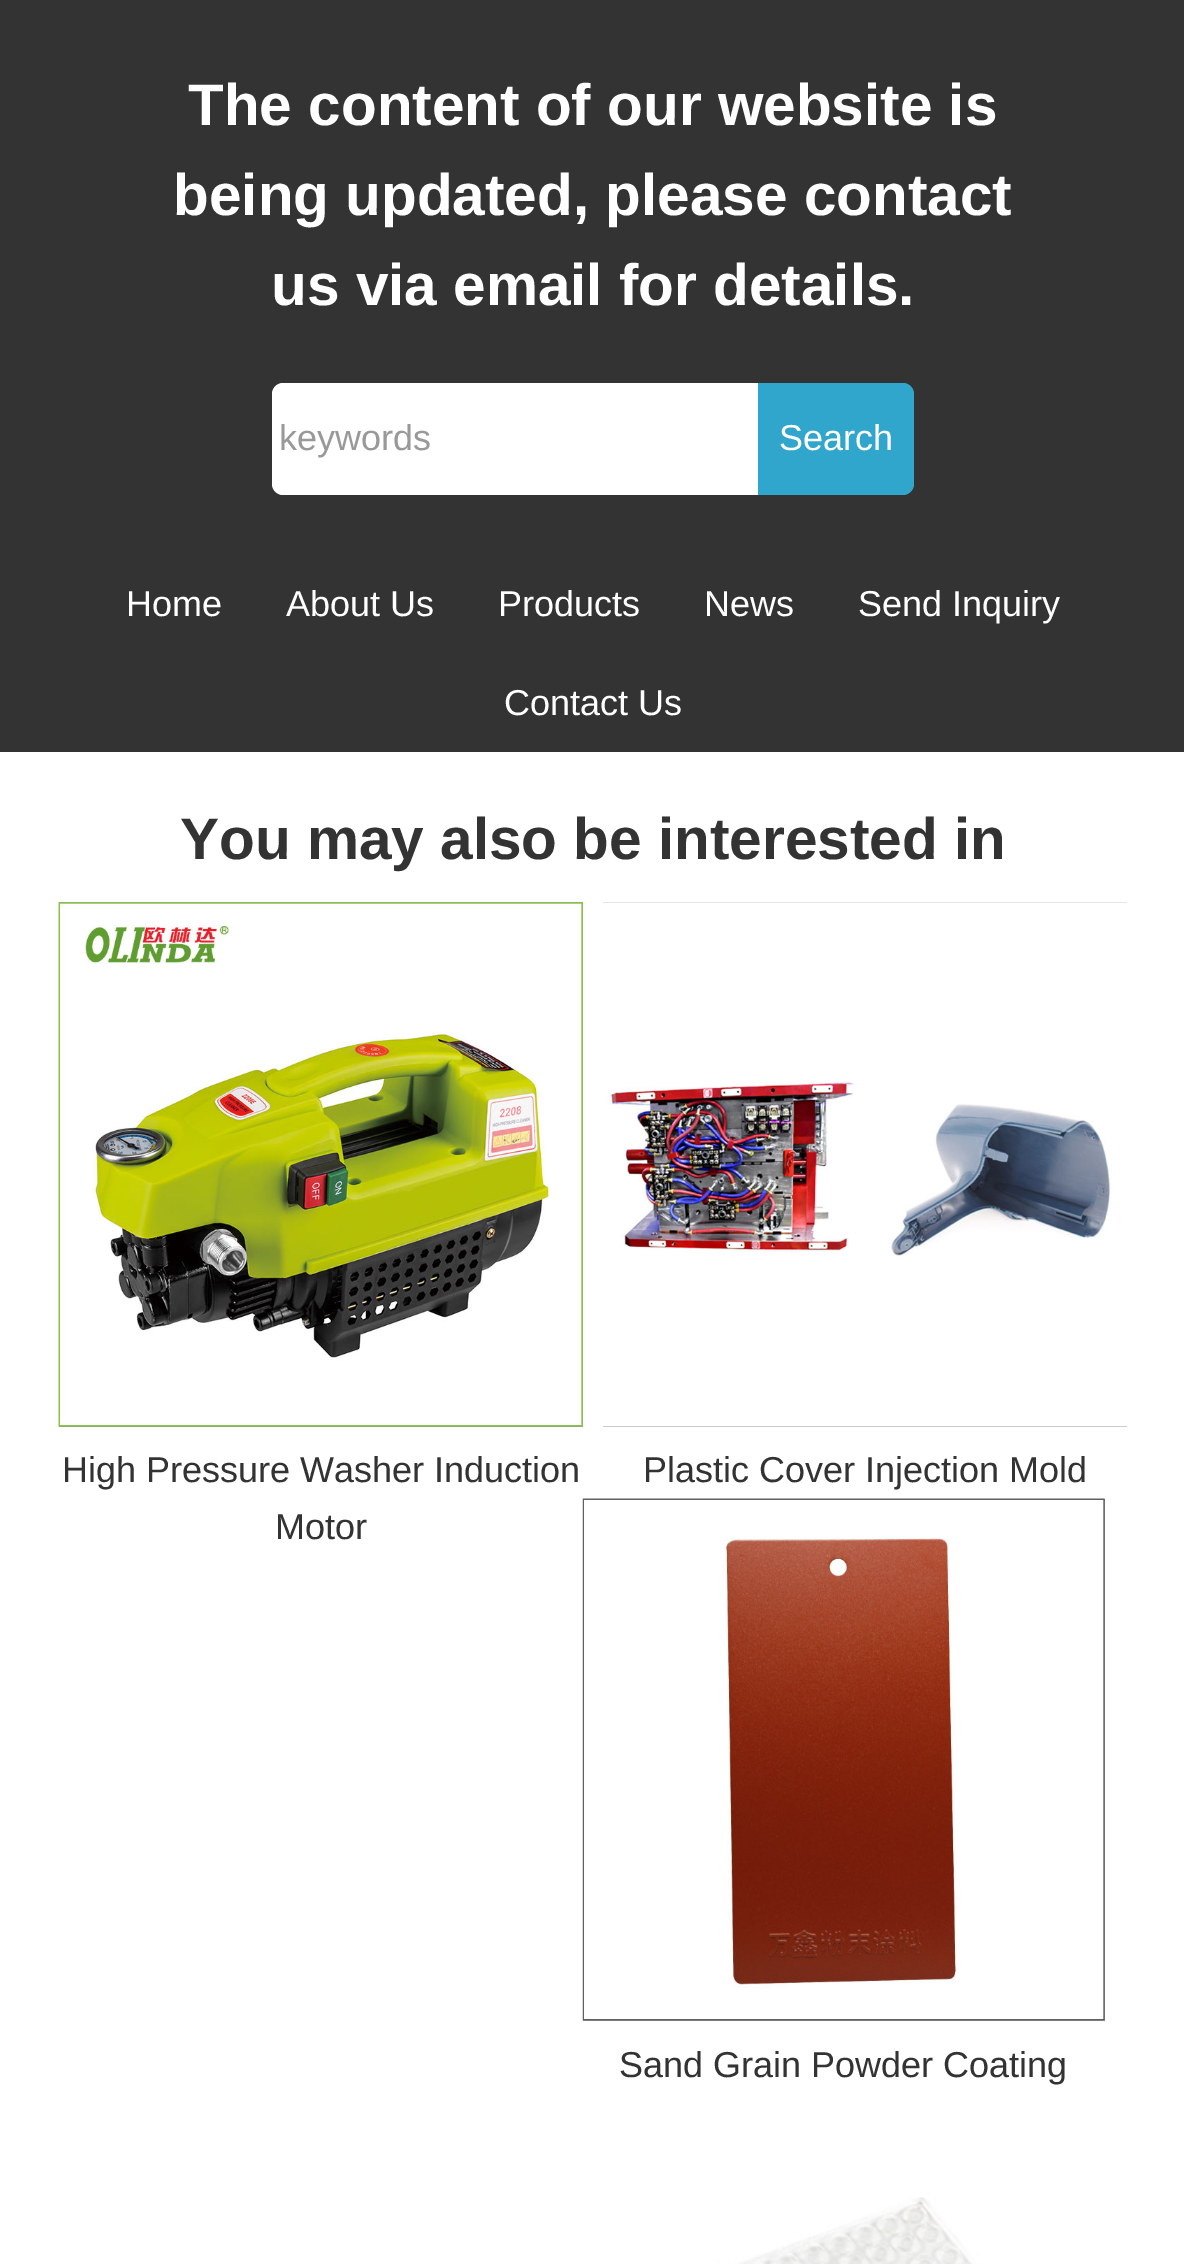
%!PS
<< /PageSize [1184 2264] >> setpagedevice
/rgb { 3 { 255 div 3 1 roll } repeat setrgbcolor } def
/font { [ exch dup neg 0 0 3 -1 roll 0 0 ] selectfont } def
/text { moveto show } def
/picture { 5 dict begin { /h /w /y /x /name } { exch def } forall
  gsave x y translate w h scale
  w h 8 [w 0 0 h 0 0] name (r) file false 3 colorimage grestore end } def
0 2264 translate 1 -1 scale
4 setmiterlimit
255 255 255 rgb
0 0 1184 2264 rectfill
51 51 51 rgb
0 0 1184 752 rectfill
255 255 255 rgb
283 383 moveto 475 0 rlineto 0 112 rlineto -475 0 rlineto -6 0 -11 -5 -11 -11 rcurveto 0 -90 rlineto 0 -6 5 -11 11 -11 rcurveto closepath fill
49 166 204 rgb
758 383 moveto 145 0 rlineto 6 0 11 5 11 11 rcurveto 0 90 rlineto 0 6 -5 11 -11 11 rcurveto -145 0 rlineto closepath fill
153 153 153 rgb
59 902 524 525 rectfill
(img_01.rgb) 58 902 525 525 picture
603 902 524 525 rectfill
(img_02.rgb) 603 902 524 525 picture
583 1499 522 522 rectfill
(img_03.rgb) 582 1498 523 523 picture
(img_04.rgb) 603 2093 524 171 picture
/LiberationSans-Bold 58.5 font
255 255 255 rgb
(The content of our website is) 188 125 text
(being updated, please contact) 173 215 text
(us via email for details.) 271 305 text
/LiberationSans-Regular 36 font
153 153 153 rgb
(keywords) 279 450 text
255 255 255 rgb
(Search) 779 450 text
(Home) 126 616 text
(About Us) 286 616 text
(Products) 498 616 text
(News) 704 616 text
(Send Inquiry) 858 616 text
(Contact Us) 504 715 text
/LiberationSans-Bold 58.5 font
51 51 51 rgb
(You may also be interested in) 180 859 text
/LiberationSans-Regular 36 font
(High Pressure Washer Induction) 62 1482 text
(Motor) 275 1539 text
(Plastic Cover Injection Mold) 643 1482 text
(Sand Grain Powder Coating) 619 2077 text
showpage
